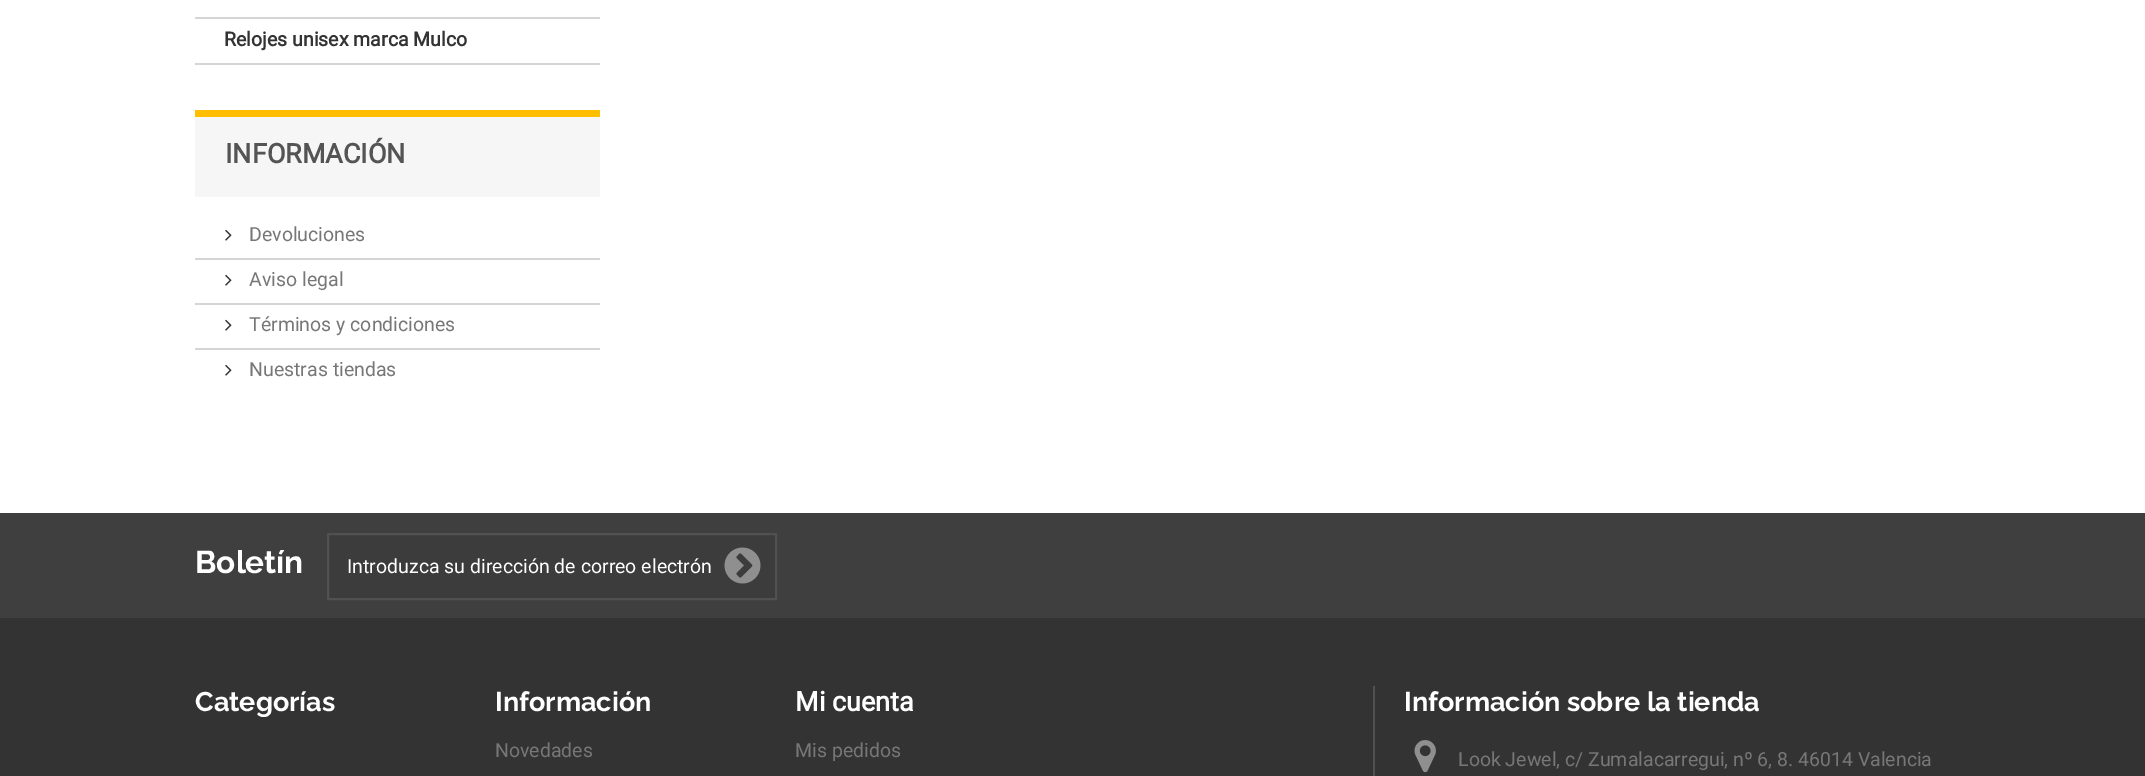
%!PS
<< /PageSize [2145 776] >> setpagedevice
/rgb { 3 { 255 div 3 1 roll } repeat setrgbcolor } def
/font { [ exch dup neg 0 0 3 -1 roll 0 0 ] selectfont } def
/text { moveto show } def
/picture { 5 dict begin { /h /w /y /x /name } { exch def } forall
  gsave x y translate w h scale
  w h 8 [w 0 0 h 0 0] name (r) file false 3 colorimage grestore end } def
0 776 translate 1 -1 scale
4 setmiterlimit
255 255 255 rgb
0 0 2145 776 rectfill
214 212 212 rgb
195 17 405 2 rectfill
195 63 405 2 rectfill
246 246 246 rgb
195 117 405 80 rectfill
255 190 0 rgb
195 110 405 7 rectfill
(img_01.rgb) 225 229 7 12 picture
214 212 212 rgb
195 258 405 2 rectfill
(img_01.rgb) 225 274 7 12 picture
195 303 405 2 rectfill
(img_01.rgb) 225 319 7 12 picture
195 348 405 2 rectfill
(img_01.rgb) 225 364 7 12 picture
51 51 51 rgb
0 618 2145 158 rectfill
63 63 63 rgb
0 513 2145 105 rectfill
60 60 60 rgb
328 534 moveto 448 0 rlineto 0 65 rlineto -448 0 rlineto closepath gsave fill grestore
81 81 81 rgb
2 setlinewidth
stroke
(img_02.rgb) 724 547 37 37 picture
1373 686 2 90 rectfill
(img_03.rgb) 1414 740 22 33 picture
/Roboto-Bold 19.5 font
51 51 51 rgb
(Relojes unisex marca Mulco) 224 46 text
/Roboto-Bold 27 font
85 84 84 rgb
(INFORMACIÓN) 225 163 text
/Roboto-Regular 19.5 font
119 119 119 rgb
(Devoluciones) 249 241 text
(Aviso legal) 249 286 text
(Términos y condiciones) 249 331 text
(Nuestras tiendas) 249 376 text
/Raleway-Bold 31.5 font
255 255 255 rgb
(Boletín) 195 573 text
/Roboto-Regular 19.5 font
(Introduzca su dirección de correo electrón) 347 573 text
/Raleway-Bold 27 font
(Categorías) 195 711 text
(Información) 495 711 text
/Roboto-Regular 19.5 font
119 119 119 rgb
(Novedades) 495 757 text
/Roboto-Bold 27 font
255 255 255 rgb
(Mi cuenta) 795 711 text
/Roboto-Regular 19.5 font
119 119 119 rgb
(Mis pedidos) 795 757 text
/Raleway-Bold 27 font
255 255 255 rgb
(Información sobre la tienda) 1404 711 text
/Roboto-Regular 19.5 font
119 119 119 rgb
(Look Jewel, c/ Zumalacarregui, nº 6, 8. 46014 Valencia) 1458 766 text
showpage
